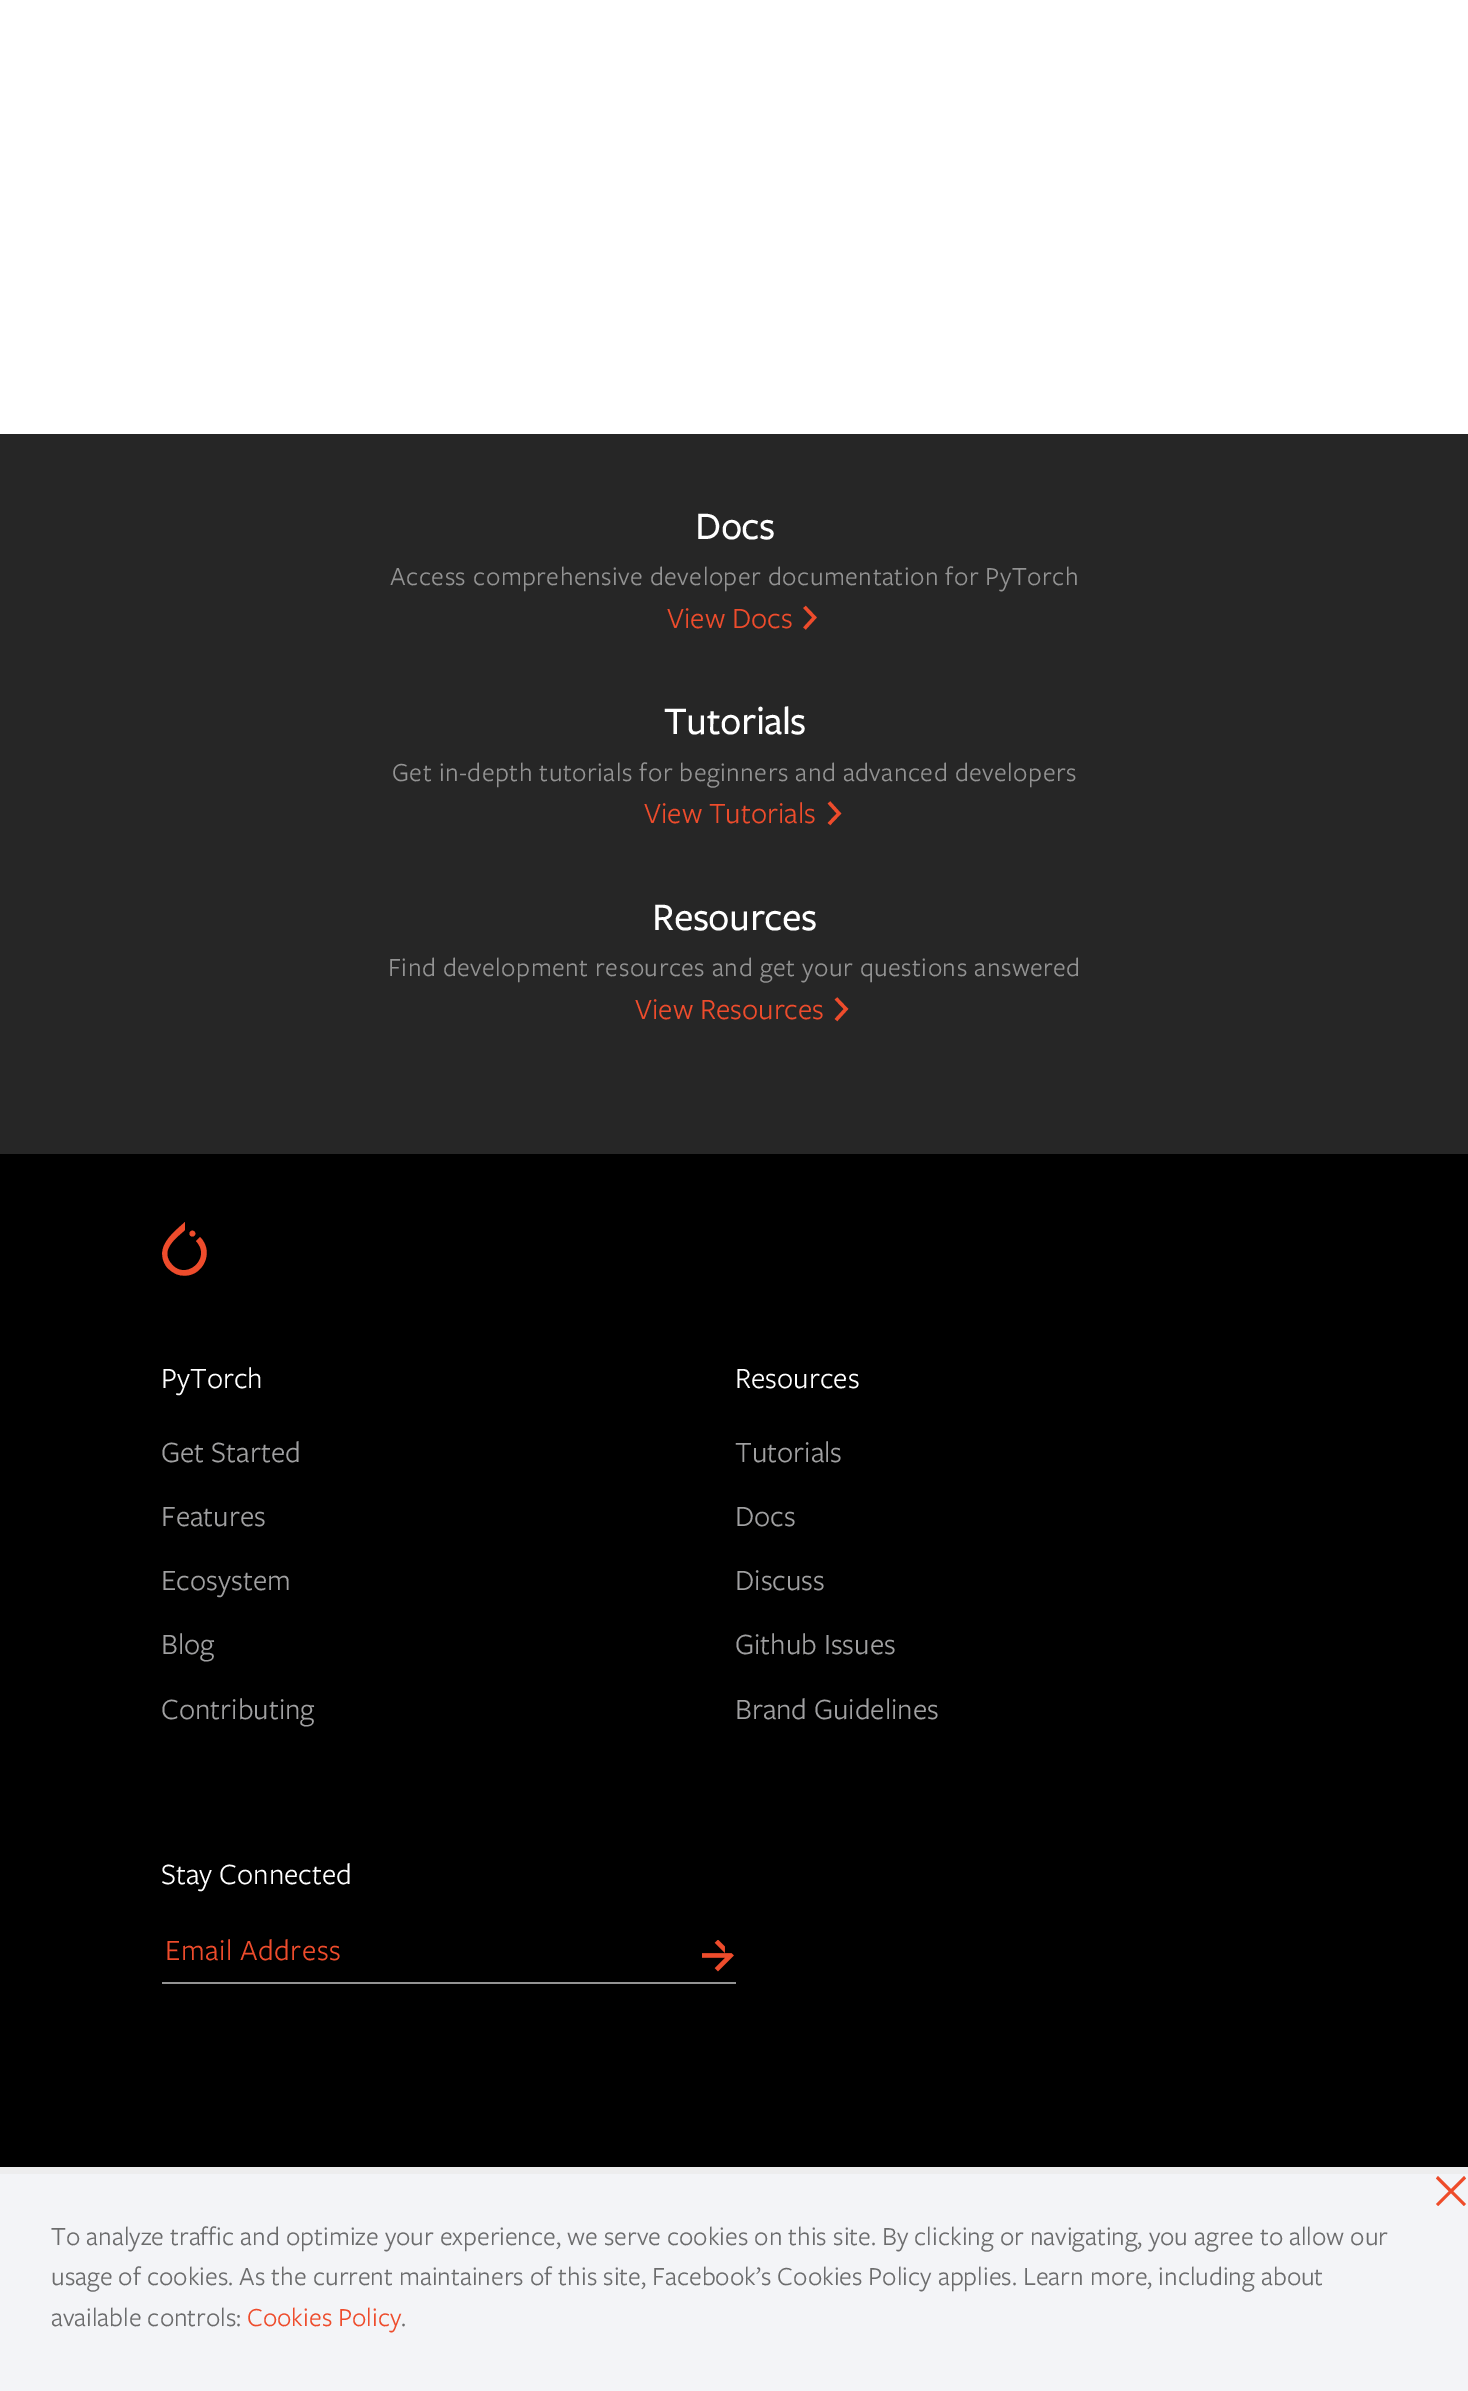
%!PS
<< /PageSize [1468 2391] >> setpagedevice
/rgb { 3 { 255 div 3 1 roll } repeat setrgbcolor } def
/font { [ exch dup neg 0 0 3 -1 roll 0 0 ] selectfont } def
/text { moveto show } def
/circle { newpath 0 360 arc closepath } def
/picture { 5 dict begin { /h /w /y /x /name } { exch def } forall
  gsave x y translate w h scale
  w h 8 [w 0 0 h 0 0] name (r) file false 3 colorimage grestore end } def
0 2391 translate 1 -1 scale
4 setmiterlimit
255 255 255 rgb
0 0 1468 2391 rectfill
38 38 38 rgb
0 434 1468 720 rectfill
238 76 44 rgb
3.3 setlinewidth
804.5 607 moveto 10 10.5 rlineto -10 11 rlineto stroke
829 802.5 moveto 10 11 rlineto -10 10.5 rlineto stroke
836 998.5 moveto 10 10.5 rlineto -10 11 rlineto stroke
0 0 0 rgb
0 1154 1468 1013 rectfill
238 76 44 rgb
200 1237 moveto -4 4 rlineto 17 18 -12 42 -26 21 rcurveto -9 -13 6 -24 15 -32 rcurveto 0 -8 rlineto -12 11 -31 25 -19 44 rcurveto 2 3 6 6 10 8 rcurveto 23 9 41 -20 24 -37 rcurveto closepath fill
192.4 1233.6 2.9 circle fill
147 147 147 rgb
162 1982 574 2 rectfill
(img_01.rgb) 702 1940 32 32 picture
243 244 247 rgb
0 2174 1468 217 rectfill
237 237 238 rgb
0 2167 1468 7 rectfill
238 76 42 rgb
1438 2176 moveto 28 28 rlineto -2 2 rlineto -28 -27.5 rlineto closepath fill
1466 2178.5 moveto -28 27.5 rlineto -2 -2 rlineto 28 -28 rlineto closepath fill
/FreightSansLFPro-Medium 40.5 font
255 255 255 rgb
695 539 moveto -0.5 0 (Docs) ashow
/FreightSansLFPro-Regular 27 font
147 147 147 rgb
390 585 moveto 0.5 0 (Access comprehensive developer documentation for PyTorch) ashow
/FreightSansLFPro-Regular 30.5 font
238 76 44 rgb
(View Docs) 667 628 text
/FreightSansLFPro-Medium 40.5 font
255 255 255 rgb
664 734 moveto -0.5 0 (Tutorials) ashow
/FreightSansLFPro-Regular 27 font
147 147 147 rgb
392 781 moveto 0.5 0 (Get in-depth tutorials for beginners and advanced developers) ashow
/FreightSansLFPro-Regular 30.5 font
238 76 44 rgb
(View Tutorials) 644 823 text
/FreightSansLFPro-Medium 40.5 font
255 255 255 rgb
652 930 moveto -0.5 0 (Resources) ashow
/FreightSansLFPro-Regular 27 font
147 147 147 rgb
388 976 moveto 0.5 0 (Find development resources and get your questions answered) ashow
/FreightSansLFPro-Regular 30.5 font
238 76 44 rgb
(View Resources) 635 1019 text
255 255 255 rgb
(PyTorch) 161 1388 text
160 160 161 rgb
(Get Started) 161 1462 text
(Features) 161 1526 text
(Ecosystem) 161 1590 text
(Blog) 161 1654 text
(Contributing) 161 1719 text
255 255 255 rgb
(Resources) 735 1388 text
160 160 161 rgb
(Tutorials) 735 1462 text
(Docs) 735 1526 text
(Discuss) 735 1590 text
(Github Issues) 735 1654 text
(Brand Guidelines) 735 1719 text
255 255 255 rgb
(Stay Connected) 161 1884 text
238 76 44 rgb
165 1960 moveto 0.5 0 (Email Address) ashow
/FreightSansLFPro-Regular 27 font
108 108 109 rgb
(To analyze traffic and optimize your experience, we serve cookies on this site. By clicking or navigating, you agree to allow our) 51 2245 text
(usage of cookies. As the current maintainers of this site, Facebook’s Cookies Policy applies. Learn more, including about) 51 2285 text
(available controls:) 51 2326 text
238 76 44 rgb
(Cookies Policy) 247 2326 text
108 108 109 rgb
(.) 401 2326 text
showpage
